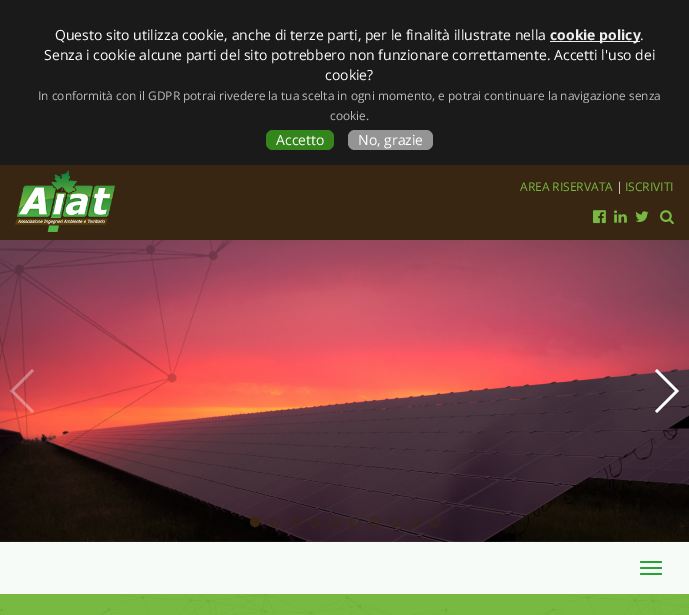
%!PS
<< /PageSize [689 615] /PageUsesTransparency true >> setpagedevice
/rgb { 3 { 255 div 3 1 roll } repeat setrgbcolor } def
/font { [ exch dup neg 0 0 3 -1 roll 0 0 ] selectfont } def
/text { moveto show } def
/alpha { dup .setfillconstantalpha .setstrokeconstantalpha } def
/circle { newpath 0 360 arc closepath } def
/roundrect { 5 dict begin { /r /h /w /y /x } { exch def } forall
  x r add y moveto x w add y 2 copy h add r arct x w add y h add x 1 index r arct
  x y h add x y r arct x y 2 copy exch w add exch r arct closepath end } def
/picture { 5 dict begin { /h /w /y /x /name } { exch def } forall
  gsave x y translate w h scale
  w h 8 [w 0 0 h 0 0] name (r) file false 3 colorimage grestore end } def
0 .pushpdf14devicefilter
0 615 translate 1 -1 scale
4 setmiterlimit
255 255 255 rgb
0 0 689 615 rectfill
26 26 26 rgb
0 0 689 165 rectfill
238 238 238 rgb
550 41 90 1 rectfill
51 133 28 rgb
266 130 68 20 7 roundrect fill
148 148 148 rgb
348 130 85 20 7 roundrect fill
56 37 18 rgb
0 165 689 75 rectfill
(img_01.rgb) 15 170 100 62 picture
(img_02.rgb) 593 210 13 14 picture
(img_03.rgb) 614 210 13 13 picture
(img_04.rgb) 635 211 14 11 picture
(img_05.rgb) 660 210 14 15 picture
(img_06.rgb) 0 240 689 302 picture
(img_07.rgb) 0 240 233 242 picture
0.35 alpha
255 255 255 rgb
10 391 moveto 22 -22 rlineto 2 2 rlineto -20 20 rlineto 20 20 rlineto -2 2 rlineto closepath fill
1 alpha
679 391 moveto -22 22 rlineto -2 -2 rlineto 20 -20 rlineto -20 -20 rlineto 2 -2 rlineto closepath fill
56 37 18 rgb
255 522 4.5 circle gsave fill grestore
stroke
275 522 4.5 circle stroke
295 522 4.5 circle stroke
315 522 4.5 circle stroke
335 522 4.5 circle stroke
355 522 4.5 circle stroke
375 522 4.5 circle stroke
395 522 4.5 circle stroke
415 522 4.5 circle stroke
435 522 4.5 circle stroke
247 251 248 rgb
0 542 689 52 rectfill
43 162 56 rgb
640 561 22 2 1 roundrect fill
640 567 22 2 1 roundrect fill
640 573 22 2 1 roundrect fill
119 185 65 rgb
0 594 689 21 rectfill
(img_08.rgb) 0 594 689 21 picture
/OpenSans-Regular 14 font
255 255 255 rgb
(Questo sito utilizza cookie, anche di terze parti, per le finalità illustrate nella) 55 40 text
/OpenSans-Bold 14 font
238 238 238 rgb
(cookie policy) 550 40 text
/OpenSans-Regular 14 font
255 255 255 rgb
(.) 640 40 text
(Senza i cookie alcune parti del sito potrebbero non funzionare correttamente. Accetti l'uso dei) 44 60 text
(cookie?) 325 80 text
/OpenSans-Regular 11.9 font
186 186 186 rgb
(In conformità con il GDPR potrai rivedere la tua scelta in ogni momento, e potrai continuare la navigazione senza) 38 100 text
(cookie.) 330 120 text
/OpenSans-Regular 14 font
255 255 255 rgb
(Accetto) 276 145 text
(No, grazie) 358 145 text
/OpenSans-Regular 12 font
119 185 65 rgb
(AREA RISERVATA) 520 191 text
255 255 255 rgb
(|) 616 191 text
119 185 65 rgb
(ISCRIVITI) 625 191 text
.poppdf14devicefilter showpage
